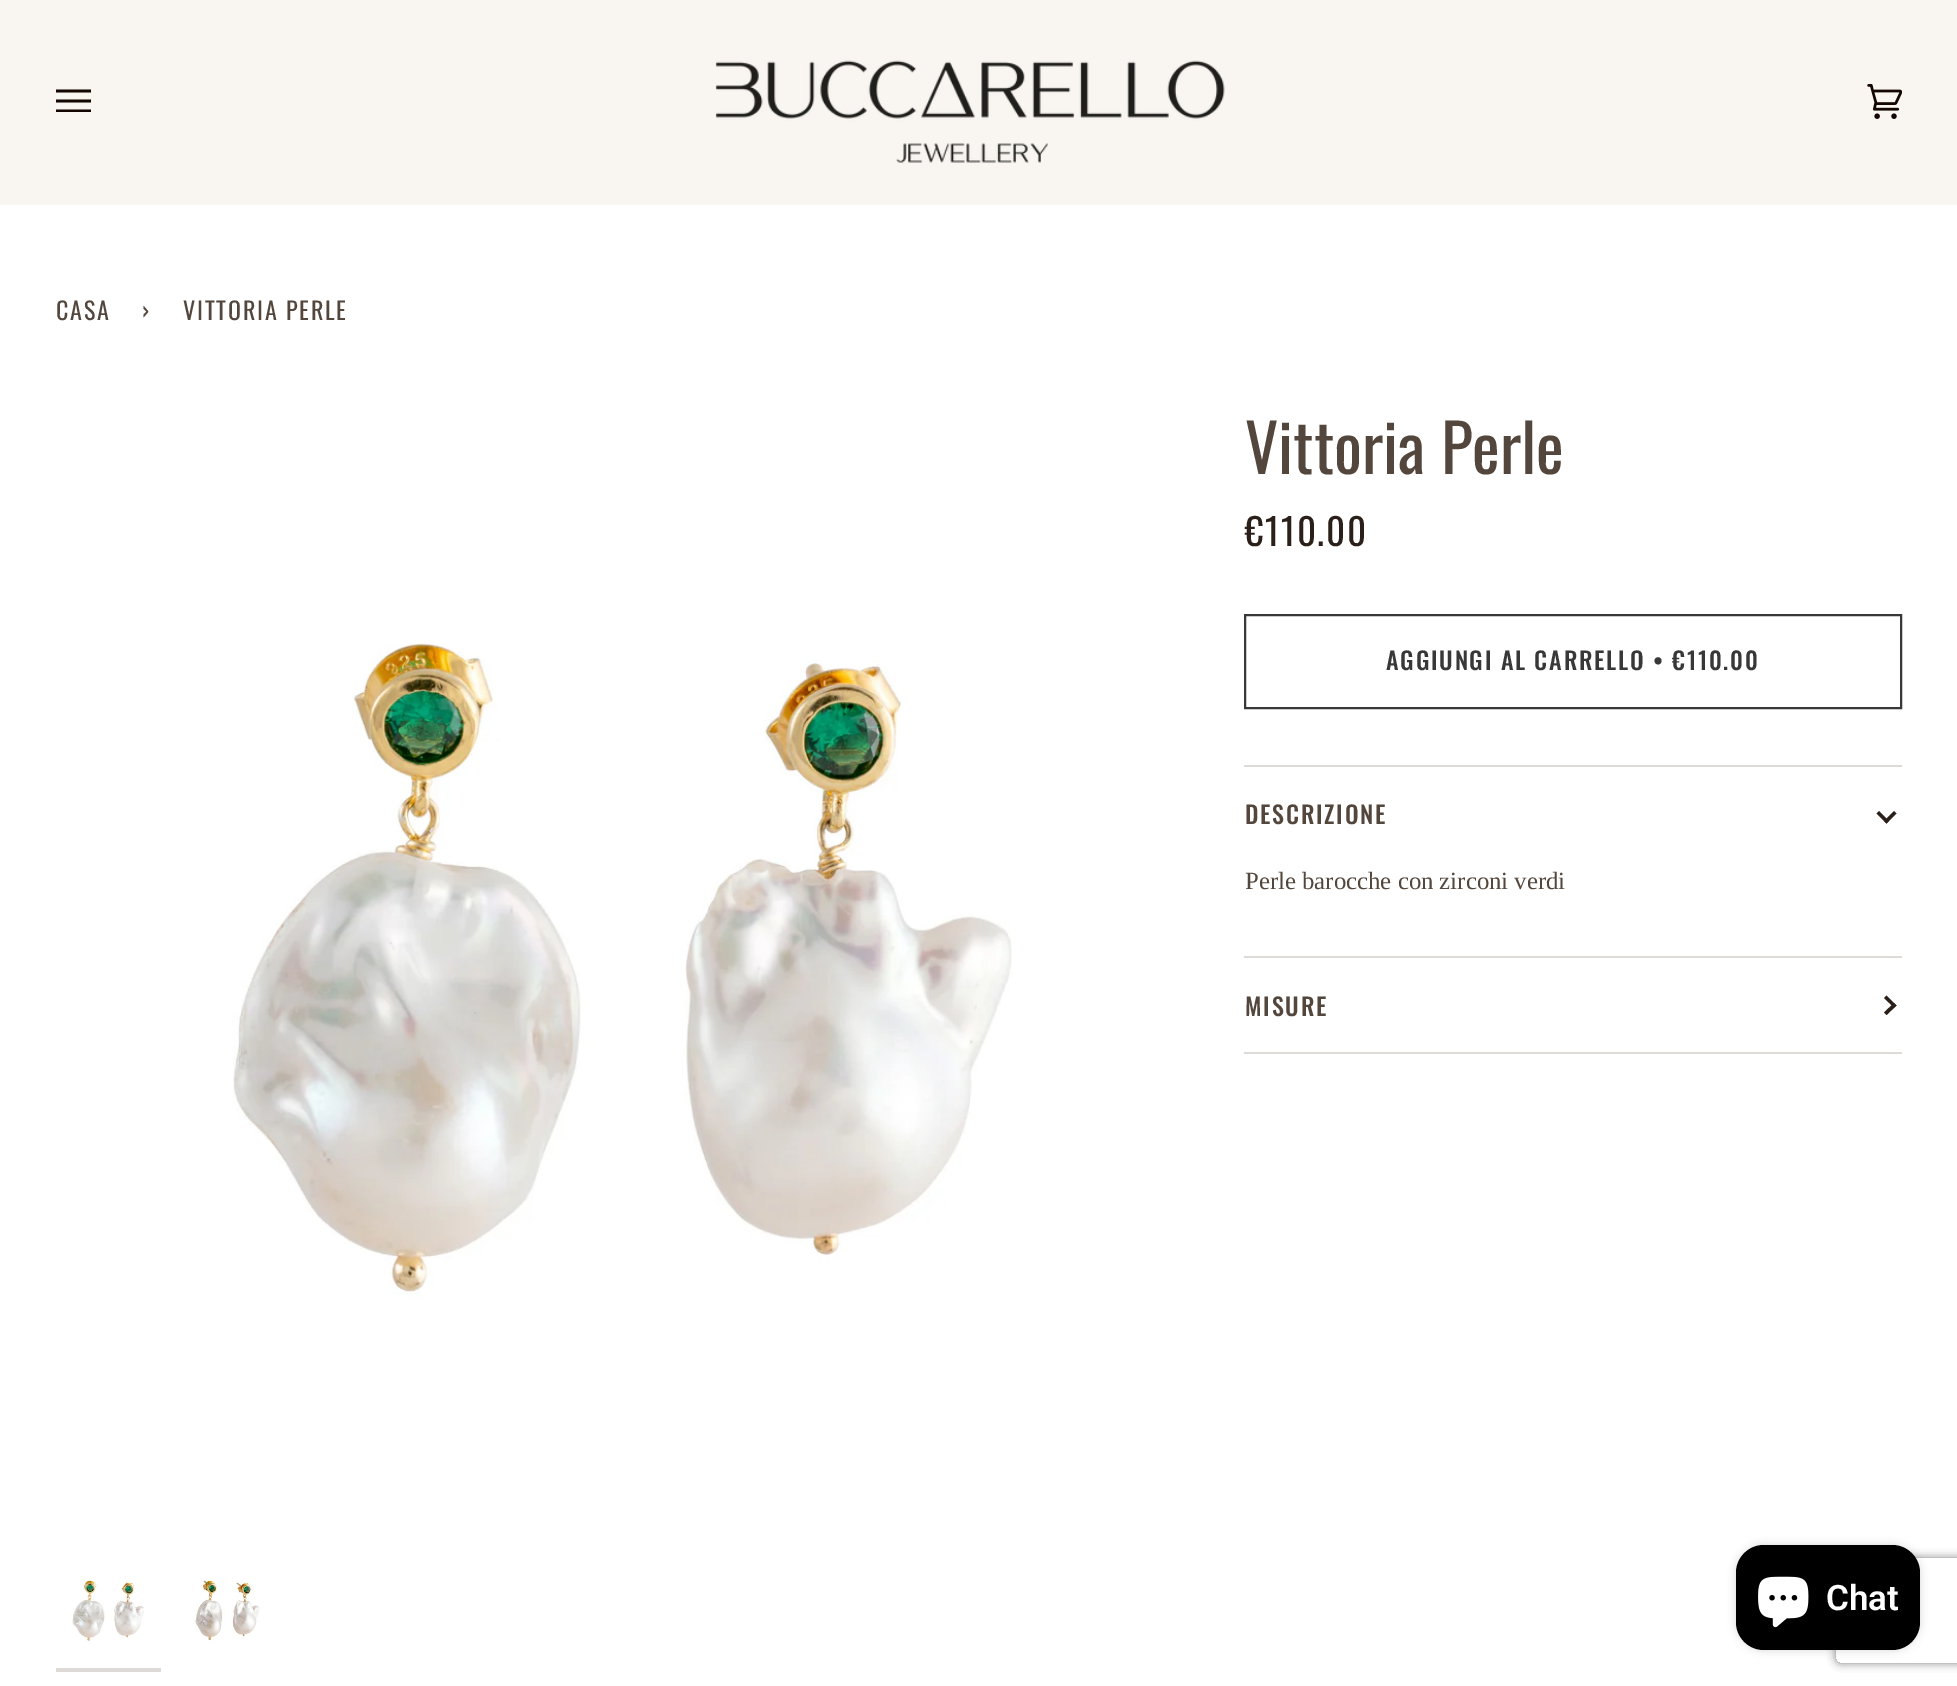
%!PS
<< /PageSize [1957 1686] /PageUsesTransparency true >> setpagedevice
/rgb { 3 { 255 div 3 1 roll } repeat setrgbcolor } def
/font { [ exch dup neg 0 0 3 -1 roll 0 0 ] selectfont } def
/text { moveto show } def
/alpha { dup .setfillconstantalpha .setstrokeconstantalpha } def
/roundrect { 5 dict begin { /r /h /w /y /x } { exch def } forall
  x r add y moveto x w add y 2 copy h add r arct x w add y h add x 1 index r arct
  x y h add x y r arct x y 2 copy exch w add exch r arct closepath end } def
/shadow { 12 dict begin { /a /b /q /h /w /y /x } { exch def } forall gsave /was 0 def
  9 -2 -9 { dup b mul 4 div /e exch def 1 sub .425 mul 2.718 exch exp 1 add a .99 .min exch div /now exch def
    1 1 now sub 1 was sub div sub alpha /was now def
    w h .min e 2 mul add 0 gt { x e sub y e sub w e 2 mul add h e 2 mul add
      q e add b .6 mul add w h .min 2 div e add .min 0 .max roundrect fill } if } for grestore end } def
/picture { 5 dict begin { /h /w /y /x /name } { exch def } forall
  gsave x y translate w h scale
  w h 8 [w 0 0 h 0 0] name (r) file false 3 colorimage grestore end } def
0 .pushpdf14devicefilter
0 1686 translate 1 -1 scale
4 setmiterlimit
255 255 255 rgb
0 0 1957 1686 rectfill
249 246 242 rgb
0 0 1957 205 rectfill
20 6 1 rgb
56 89.5 moveto 35 0 rlineto 0 3 rlineto -35 0 rlineto closepath 56 99.5 moveto 35 0 rlineto 0 3 rlineto -35 0 rlineto closepath 56 109.5 moveto 35 0 rlineto 0 2.5 rlineto -35 0 rlineto closepath fill
(img_01.rgb) 715 60 510 103 picture
(img_02.rgb) 1867 84 35 35 picture
(img_03.rgb) 56 413 1132 1132 picture
(img_04.rgb) 72 1580 72 61 picture
221 218 216 rgb
56 1668 105 4 rectfill
(img_05.rgb) 195 1580 65 63 picture
57 56 56 rgb
2 setlinewidth
1245 615 656 93 rectstroke
221 218 216 rgb
1244 765 658 2 rectfill
1244 956 658 2 rectfill
42 32 25 rgb
1884 821 moveto 10 -10 rlineto 2.5 2.5 rlineto -10 10 rlineto closepath fill
1876.5 813.5 moveto 2.5 -2.5 rlineto 10 10 rlineto -2.5 2.5 rlineto closepath fill
221 218 216 rgb
1244 1052 658 2 rectfill
42 32 25 rgb
1894 1007.5 moveto -10 -9.5 rlineto 2.5 -2.5 rlineto 10 10 rlineto closepath fill
1886.5 1015 moveto -2.5 -2.5 rlineto 10 -9.5 rlineto 2.5 2.5 rlineto closepath fill
gsave
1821 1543 moveto 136 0 rlineto 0 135 rlineto -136 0 rlineto closepath 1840 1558 moveto 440 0 rlineto 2 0 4 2 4 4 rcurveto 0 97 rlineto 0 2 -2 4 -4 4 rcurveto -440 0 rlineto -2 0 -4 -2 -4 -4 rcurveto 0 -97 rlineto 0 -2 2 -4 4 -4 rcurveto closepath eoclip newpath
128 128 128 rgb
1836 1558 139 105 4 4.5 1 shadow
grestore
0 0 0 rgb
1736 1545 184 105 28 4.5 0.15 shadow
1736 1545 184 105 28 roundrect fill
(img_06.rgb) 1758 1576 51 52 picture
/Oswald-Regular 24.1 font
83 70 60 rgb
56 320 moveto 1.75 0 (CASA) ashow
142 320 moveto 1.75 0 (›) ashow
183 320 moveto 1.75 0 (VITTORIA PERLE) ashow
/Oswald-Regular 66 font
(Vittoria Perle) 1245 474 text
/Oswald-Regular 37 font
42 32 25 rgb
1245 546 moveto 1.75 0 (€110.00) ashow
/Oswald-Medium 24.1 font
57 56 56 rgb
1386 670 moveto 1.75 0 (AGGIUNGI AL CARRELLO • €110.00) ashow
83 70 60 rgb
1245 824 moveto 1.75 0 (DESCRIZIONE) ashow
/LiberationSerif-Regular 24.75 font
(Perle barocche con zirconi verdi) 1245 889 text
/Oswald-Medium 24.1 font
1245 1016 moveto 1.75 0 (MISURE) ashow
/Roboto-SemiBold 35 font
255 255 255 rgb
(Chat) 1826 1610 text
.poppdf14devicefilter showpage
